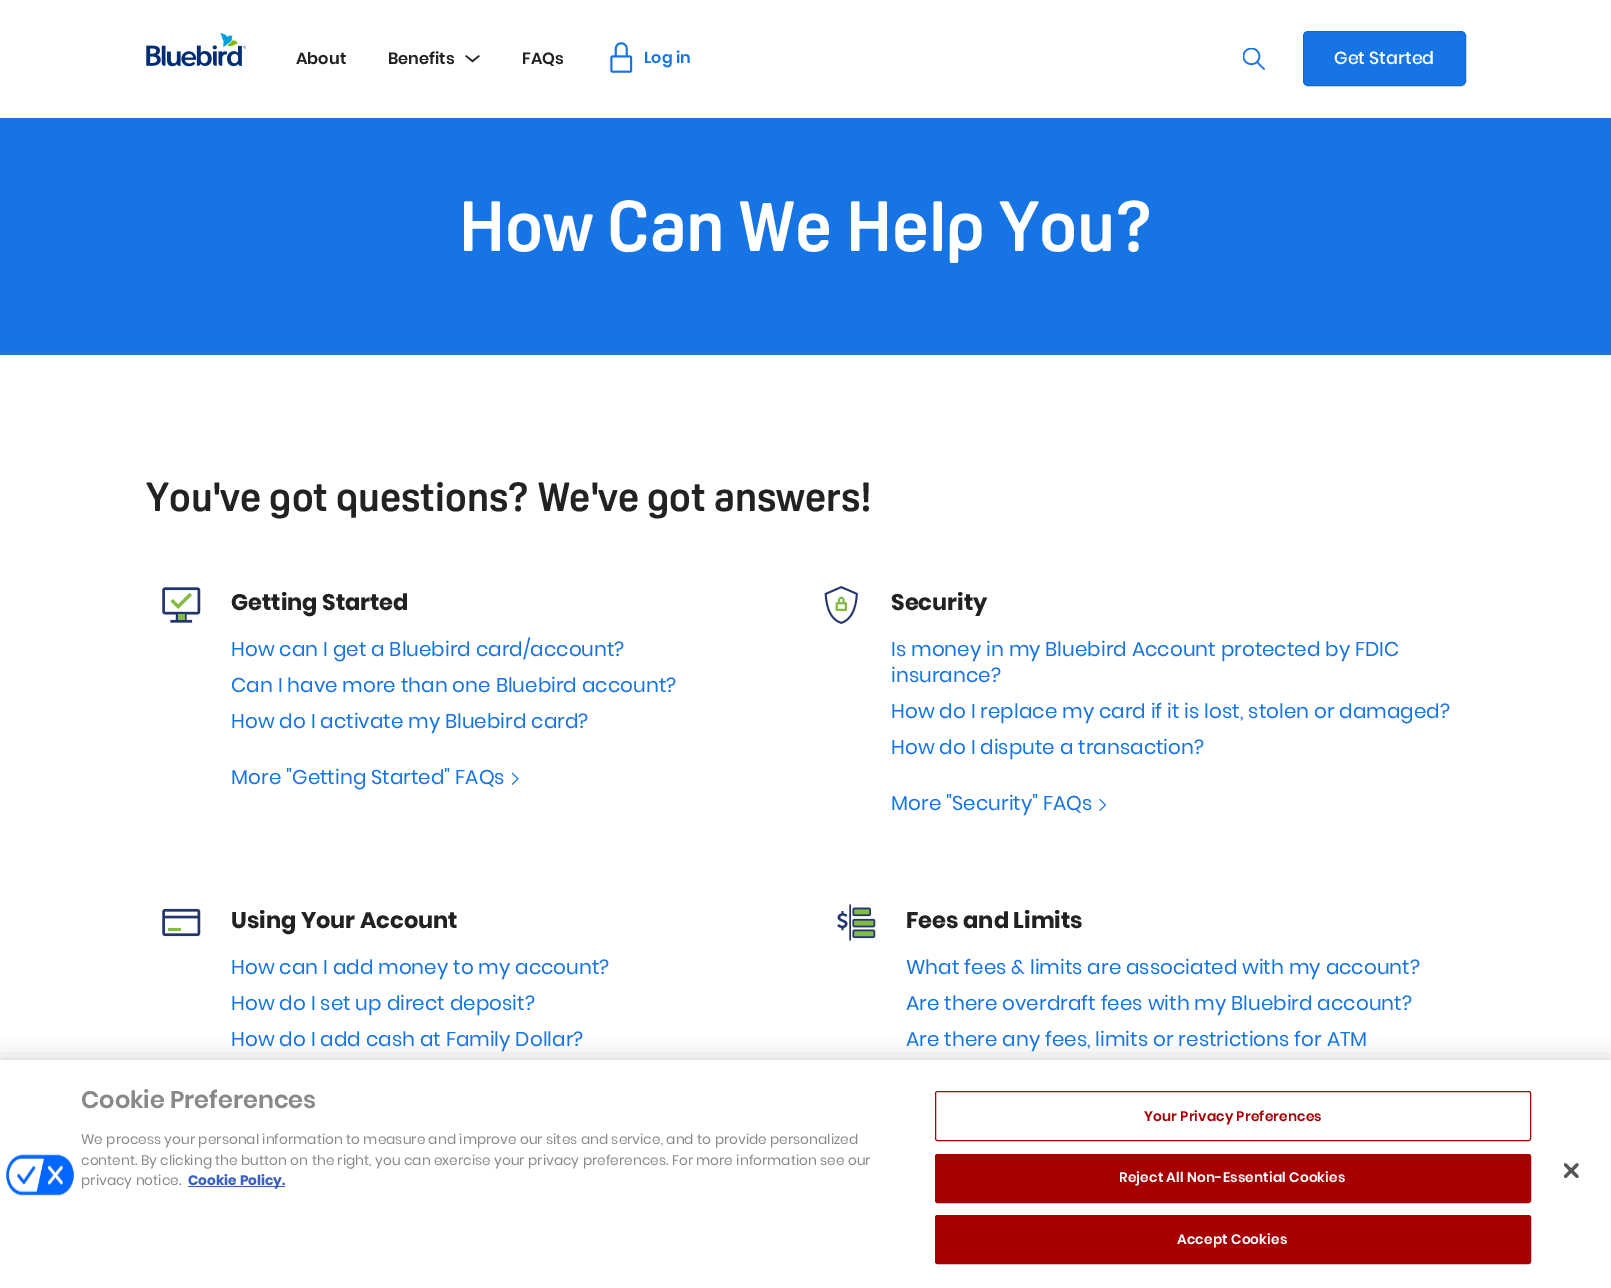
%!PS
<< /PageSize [1611 1288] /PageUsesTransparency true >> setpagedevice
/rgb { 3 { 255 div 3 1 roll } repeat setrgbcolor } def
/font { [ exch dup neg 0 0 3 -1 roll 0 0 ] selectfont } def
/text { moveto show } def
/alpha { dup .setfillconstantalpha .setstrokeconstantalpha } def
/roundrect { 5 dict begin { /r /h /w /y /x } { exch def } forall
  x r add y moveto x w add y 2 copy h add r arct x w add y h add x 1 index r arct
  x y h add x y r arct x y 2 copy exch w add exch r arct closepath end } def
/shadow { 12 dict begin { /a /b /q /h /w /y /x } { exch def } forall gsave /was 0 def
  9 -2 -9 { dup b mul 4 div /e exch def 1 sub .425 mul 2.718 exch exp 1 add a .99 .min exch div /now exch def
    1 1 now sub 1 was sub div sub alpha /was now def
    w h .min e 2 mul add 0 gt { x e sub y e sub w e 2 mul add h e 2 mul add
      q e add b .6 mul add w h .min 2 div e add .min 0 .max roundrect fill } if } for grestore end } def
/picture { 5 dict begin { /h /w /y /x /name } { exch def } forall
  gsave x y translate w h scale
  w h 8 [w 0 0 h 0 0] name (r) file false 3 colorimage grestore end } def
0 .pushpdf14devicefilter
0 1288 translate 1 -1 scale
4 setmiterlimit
255 255 255 rgb
0 0 1611 1288 rectfill
(img_01.rgb) 146 33 100 34 picture
(img_02.rgb) 465 55 15 8 picture
(img_03.rgb) 610 42 23 31 picture
(img_04.rgb) 1243 48 22 22 picture
23 116 229 rgb
1303.5 31.5 162 54 4.5 roundrect gsave fill grestore
14 102 210 rgb
stroke
23 116 229 rgb
0 118 1611 237 rectfill
(img_05.rgb) 162 587 39 36 picture
(img_06.rgb) 511 772 8 13 picture
(img_07.rgb) 824 586 34 38 picture
(img_08.rgb) 1099 798 8 14 picture
(img_09.rgb) 162 908 39 29 picture
(img_10.rgb) 837 904 39 37 picture
0 0 0 rgb
0 1060 1611 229 0 11 0.2 shadow
255 255 255 rgb
0 1060 1611 228 rectfill
(img_11.rgb) 6 1154 68 42 picture
56 96 190 rgb
188 1186 97 1 rectfill
166 0 3 rgb
935.5 1091.5 595 49 2 roundrect stroke
935.5 1154.5 595 48 2 roundrect gsave fill grestore
stroke
935.5 1215.5 595 48 2 roundrect gsave fill grestore
stroke
(img_12.rgb) 1564 1163 15 15 picture
/Poppins-SemiBold 16.25 font
34 34 34 rgb
(About) 296 64 text
(Benefits) 388 64 text
(FAQs) 522 64 text
/Poppins-SemiBold 16 font
23 116 229 rgb
(Log in) 644 63 text
/Poppins-Medium 17.5 font
255 255 255 rgb
(Get Started) 1334 64 text
/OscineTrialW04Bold-Bold 70 font
(How Can We Help You?) 459 251 text
/OscineTrialW04Bold-Bold 40 font
34 34 34 rgb
(You've got questions? We've got answers!) 146 511 text
/Poppins-Bold 22.5 font
(Getting Started) 231 610 text
/Poppins-Regular 20 font
23 116 229 rgb
(How can I get a Bluebird card/account?) 231 656 text
(Can I have more than one Bluebird account?) 231 692 text
(How do I activate my Bluebird card?) 231 728 text
(More "Getting Started" FAQs) 231 784 text
/Poppins-Bold 22.5 font
34 34 34 rgb
(Security) 891 610 text
/Poppins-Regular 20 font
23 116 229 rgb
(Is money in my Bluebird Account protected by FDIC) 891 656 text
(insurance?) 891 682 text
(How do I replace my card if it is lost, stolen or damaged?) 891 718 text
(How do I dispute a transaction?) 891 754 text
(More "Security" FAQs) 891 810 text
/Poppins-Bold 22.5 font
34 34 34 rgb
(Using Your Account) 231 928 text
/Poppins-Regular 20 font
23 116 229 rgb
(How can I add money to my account?) 231 974 text
(How do I set up direct deposit?) 231 1010 text
(How do I add cash at Family Dollar?) 231 1046 text
/Poppins-Bold 22.5 font
34 34 34 rgb
(Fees and Limits) 906 928 text
/Poppins-Regular 20 font
23 116 229 rgb
(What fees & limits are associated with my account?) 906 974 text
(Are there overdraft fees with my Bluebird account?) 906 1010 text
(Are there any fees, limits or restrictions for ATM) 906 1046 text
/Poppins-SemiBold 24 font
137 137 137 rgb
(Cookie Preferences) 81 1108 text
/Poppins-Regular 13.75 font
(We process your personal information to measure and improve our sites and service, and to provide personalized) 81 1144 text
(content. By clicking the button on the right, you can exercise your privacy preferences. For more information see our) 81 1165 text
(privacy notice.) 81 1185 text
/Poppins-Bold 13.75 font
56 96 190 rgb
(Cookie Policy.) 188 1185 text
/Poppins-SemiBold 13.75 font
166 0 3 rgb
1144 1121 moveto 0.15 0 (Your Privacy Preferences) ashow
255 255 255 rgb
1119 1182 moveto 0.15 0 (Reject All Non-Essential Cookies) ashow
1177 1244 moveto 0.15 0 (Accept Cookies) ashow
.poppdf14devicefilter showpage
